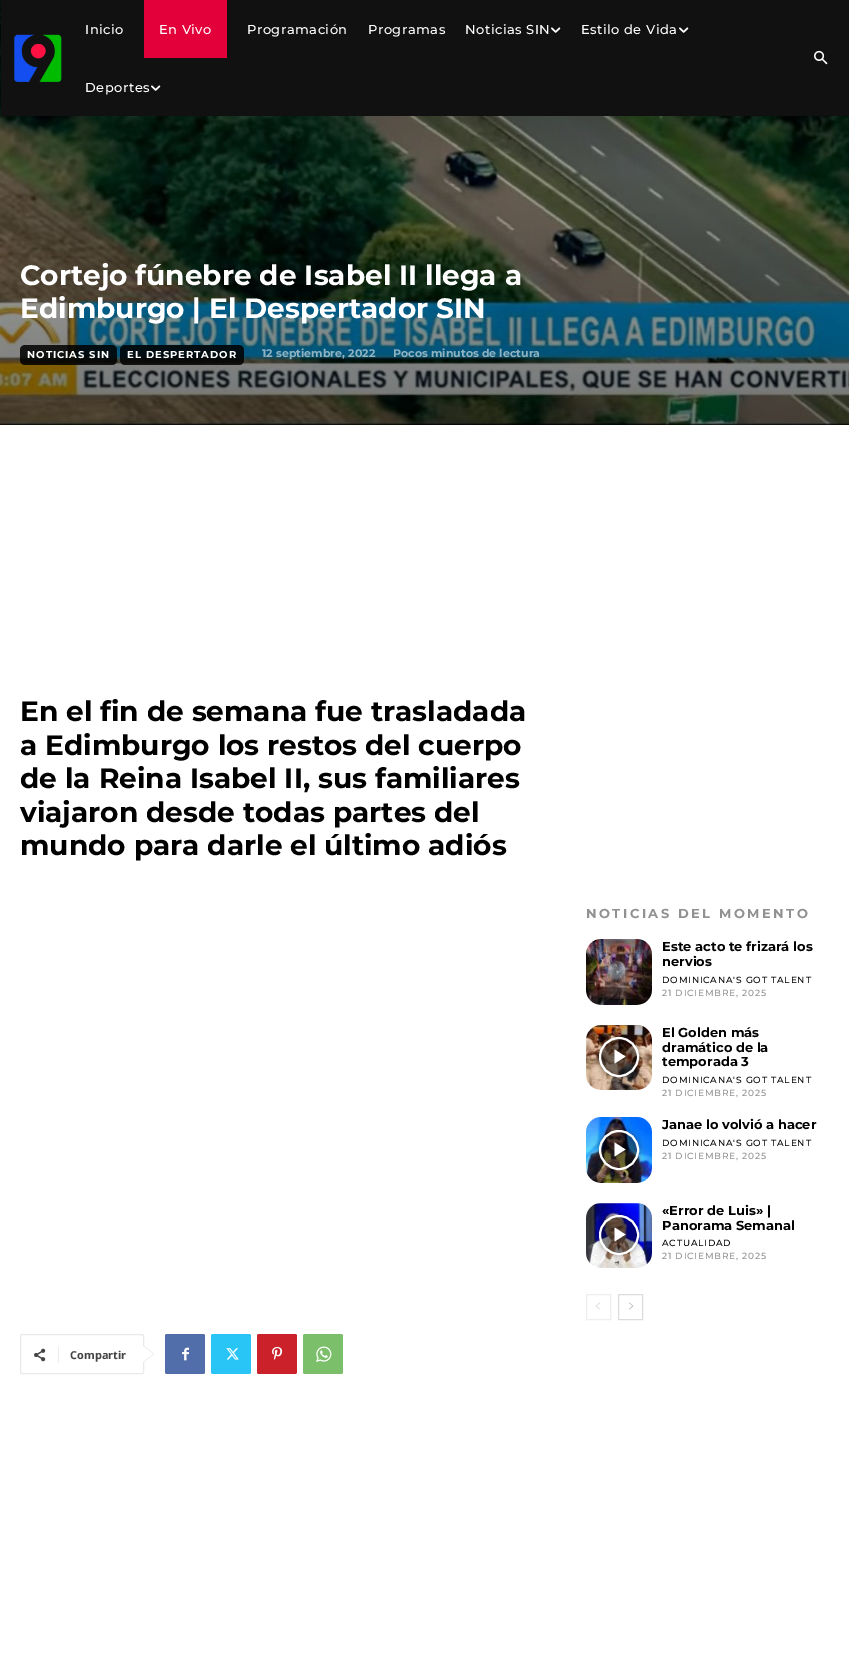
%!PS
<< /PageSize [849 1666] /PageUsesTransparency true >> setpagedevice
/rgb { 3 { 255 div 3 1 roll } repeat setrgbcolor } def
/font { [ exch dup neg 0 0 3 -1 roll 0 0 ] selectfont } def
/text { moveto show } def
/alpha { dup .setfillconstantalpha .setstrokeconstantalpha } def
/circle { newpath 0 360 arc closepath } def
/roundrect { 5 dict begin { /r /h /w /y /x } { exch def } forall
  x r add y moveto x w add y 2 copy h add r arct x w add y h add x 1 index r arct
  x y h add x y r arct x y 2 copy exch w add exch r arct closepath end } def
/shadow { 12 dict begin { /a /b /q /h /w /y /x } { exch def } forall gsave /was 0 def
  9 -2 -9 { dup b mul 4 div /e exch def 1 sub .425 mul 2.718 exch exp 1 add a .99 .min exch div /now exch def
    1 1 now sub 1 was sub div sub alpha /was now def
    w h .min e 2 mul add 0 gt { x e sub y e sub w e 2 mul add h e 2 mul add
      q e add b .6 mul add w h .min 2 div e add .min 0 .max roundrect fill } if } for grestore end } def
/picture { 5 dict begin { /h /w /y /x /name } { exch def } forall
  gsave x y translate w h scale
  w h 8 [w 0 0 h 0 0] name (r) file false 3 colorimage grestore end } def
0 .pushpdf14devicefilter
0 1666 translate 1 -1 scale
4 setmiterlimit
255 255 255 rgb
0 0 849 1666 rectfill
(img_04.rgb) 0 0 849 425 picture
17 17 17 rgb
1 0 848 116 rectfill
(img_01.rgb) 14 34 48 48 picture
227 0 58 rgb
144 0 83 58 rectfill
(img_02.rgb) 551 27 10 6 picture
(img_02.rgb) 679 27 10 6 picture
(img_02.rgb) 151 85 10 6 picture
(img_03.rgb) 814 50 14 15 picture
0.85 alpha
0 0 0 rgb
20 345 97 20 5 roundrect fill
120 345 124 20 5 roundrect fill
1 alpha
233 233 233 rgb
20.5 1334.5 123 39 1.5 roundrect stroke
143 1363 moveto 0 -18 rlineto 11 9 rlineto closepath fill
(img_05.rgb) 34 1348 12 14 picture
235 235 235 rgb
58 1347 1 16 rectfill
255 255 255 rgb
143 1362 moveto 0 -16 rlineto 10 8 rlineto closepath fill
81 110 171 rgb
165 1334 40 40 2 roundrect fill
(img_06.rgb) 182 1347 7 14 picture
41 197 246 rgb
211 1334 40 40 2 roundrect fill
(img_07.rgb) 226 1348 13 12 picture
202 33 42 rgb
257 1334 40 40 2 roundrect fill
(img_08.rgb) 272 1346 11 14 picture
123 191 106 rgb
303 1334 40 40 2 roundrect fill
(img_09.rgb) 316 1346 16 16 picture
(img_10.rgb) 586 939 66 66 picture
(img_11.rgb) 586 1025 66 65 picture
gsave
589 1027 moveto 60 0 rlineto 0 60 rlineto -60 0 rlineto closepath 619 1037 moveto 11 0 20 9 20 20 rcurveto 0 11 -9 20 -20 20 rcurveto -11 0 -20 -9 -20 -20 rcurveto 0 -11 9 -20 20 -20 rcurveto closepath eoclip newpath
0 0 0 rgb
599 1037 40 40 20 3 0.4 shadow
grestore
0.48 alpha
0 0 0 rgb
619 1057 19 circle fill
1 alpha
255 255 255 rgb
2 setlinewidth
619 1057 19 circle stroke
614.5 1049.5 moveto 0 14 rlineto 11 -7 rlineto closepath fill
(img_12.rgb) 586 1117 66 66 picture
gsave
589 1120 moveto 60 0 rlineto 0 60 rlineto -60 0 rlineto closepath 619 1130 moveto 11 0 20 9 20 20 rcurveto 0 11 -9 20 -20 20 rcurveto -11 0 -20 -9 -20 -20 rcurveto 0 -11 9 -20 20 -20 rcurveto closepath eoclip newpath
0 0 0 rgb
599 1130 40 40 20 3 0.4 shadow
grestore
0.48 alpha
0 0 0 rgb
619 1150 19 circle fill
1 alpha
255 255 255 rgb
619 1150 19 circle stroke
614.5 1142.5 moveto 0 14 rlineto 11 -7 rlineto closepath fill
(img_13.rgb) 586 1203 66 65 picture
gsave
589 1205 moveto 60 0 rlineto 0 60 rlineto -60 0 rlineto closepath 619 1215 moveto 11 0 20 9 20 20 rcurveto 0 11 -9 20 -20 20 rcurveto -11 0 -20 -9 -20 -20 rcurveto 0 -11 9 -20 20 -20 rcurveto closepath eoclip newpath
0 0 0 rgb
599 1215 40 40 20 3 0.4 shadow
grestore
0.48 alpha
0 0 0 rgb
619 1235 19 circle fill
1 alpha
255 255 255 rgb
619 1235 19 circle stroke
614.5 1227.5 moveto 0 14 rlineto 11 -7 rlineto closepath fill
238 238 238 rgb
1 setlinewidth
586.5 1294.5 24 25 rectstroke
(img_14.rgb) 595 1302 5 8 picture
220 220 220 rgb
618.5 1294.5 24 25 rectstroke
(img_15.rgb) 629 1302 5 8 picture
/Montserrat-Medium 13 font
255 255 255 rgb
85 34 moveto 0.5 0 (Inicio) ashow
159 34 moveto 0.5 0 (En Vivo) ashow
247 34 moveto 0.5 0 (Programación) ashow
368 34 moveto 0.5 0 (Programas) ashow
465 34 moveto 0.5 0 (Noticias SIN) ashow
581 34 moveto 0.5 0 (Estilo de Vida) ashow
85 92 moveto 0.5 0 (Deportes) ashow
/Montserrat-Bold 28 font
(Cortejo fúnebre de Isabel II llega a) 20 285 text
(Edimburgo | El Despertador SIN) 20 318 text
/Montserrat-Bold 10 font
27 358 moveto 1 0 (NOTICIAS SIN) ashow
127 358 moveto 1 0 (EL DESPERTADOR) ashow
/Montserrat-Bold 11 font
143 178 193 rgb
(12 septiembre, 2022) 262 357 text
(Pocos minutos de lectura) 393 357 text
/Montserrat-Bold 28 font
0 0 0 rgb
(En el fin de semana fue trasladada) 20 721 text
(a Edimburgo los restos del cuerpo) 20 755 text
(de la Reina Isabel II, sus familiares) 20 788 text
(viajaron desde todas partes del) 20 822 text
(mundo para darle el último adiós) 20 855 text
/OpenSans-Bold 11 font
68 68 68 rgb
(Compartir) 70 1359 text
/Montserrat-Bold 13 font
145 145 145 rgb
586 918 moveto 2.5 0 (NOTICIAS DEL MOMENTO) ashow
0 0 0 rgb
(Este acto te frizará los) 662 951 text
(nervios) 662 966 text
/Montserrat-Medium 9 font
662 983 moveto 0.8 0 (DOMINICANA'S GOT TALENT) ashow
145 145 145 rgb
662 996 moveto 0.8 0 (21 DICIEMBRE, 2025) ashow
/Montserrat-Bold 13 font
0 0 0 rgb
(El Golden más) 662 1037 text
(dramático de la) 662 1052 text
(temporada 3) 662 1066 text
/Montserrat-Medium 9 font
662 1083 moveto 0.8 0 (DOMINICANA'S GOT TALENT) ashow
145 145 145 rgb
662 1096 moveto 0.8 0 (21 DICIEMBRE, 2025) ashow
/Montserrat-Bold 13 font
0 0 0 rgb
(Janae lo volvió a hacer) 662 1129 text
/Montserrat-Medium 9 font
662 1146 moveto 0.8 0 (DOMINICANA'S GOT TALENT) ashow
145 145 145 rgb
662 1159 moveto 0.8 0 (21 DICIEMBRE, 2025) ashow
/Montserrat-Bold 13 font
0 0 0 rgb
(«Error de Luis» |) 662 1215 text
(Panorama Semanal) 662 1230 text
/Montserrat-Medium 9 font
662 1246 moveto 0.8 0 (ACTUALIDAD) ashow
145 145 145 rgb
662 1259 moveto 0.8 0 (21 DICIEMBRE, 2025) ashow
.poppdf14devicefilter showpage
